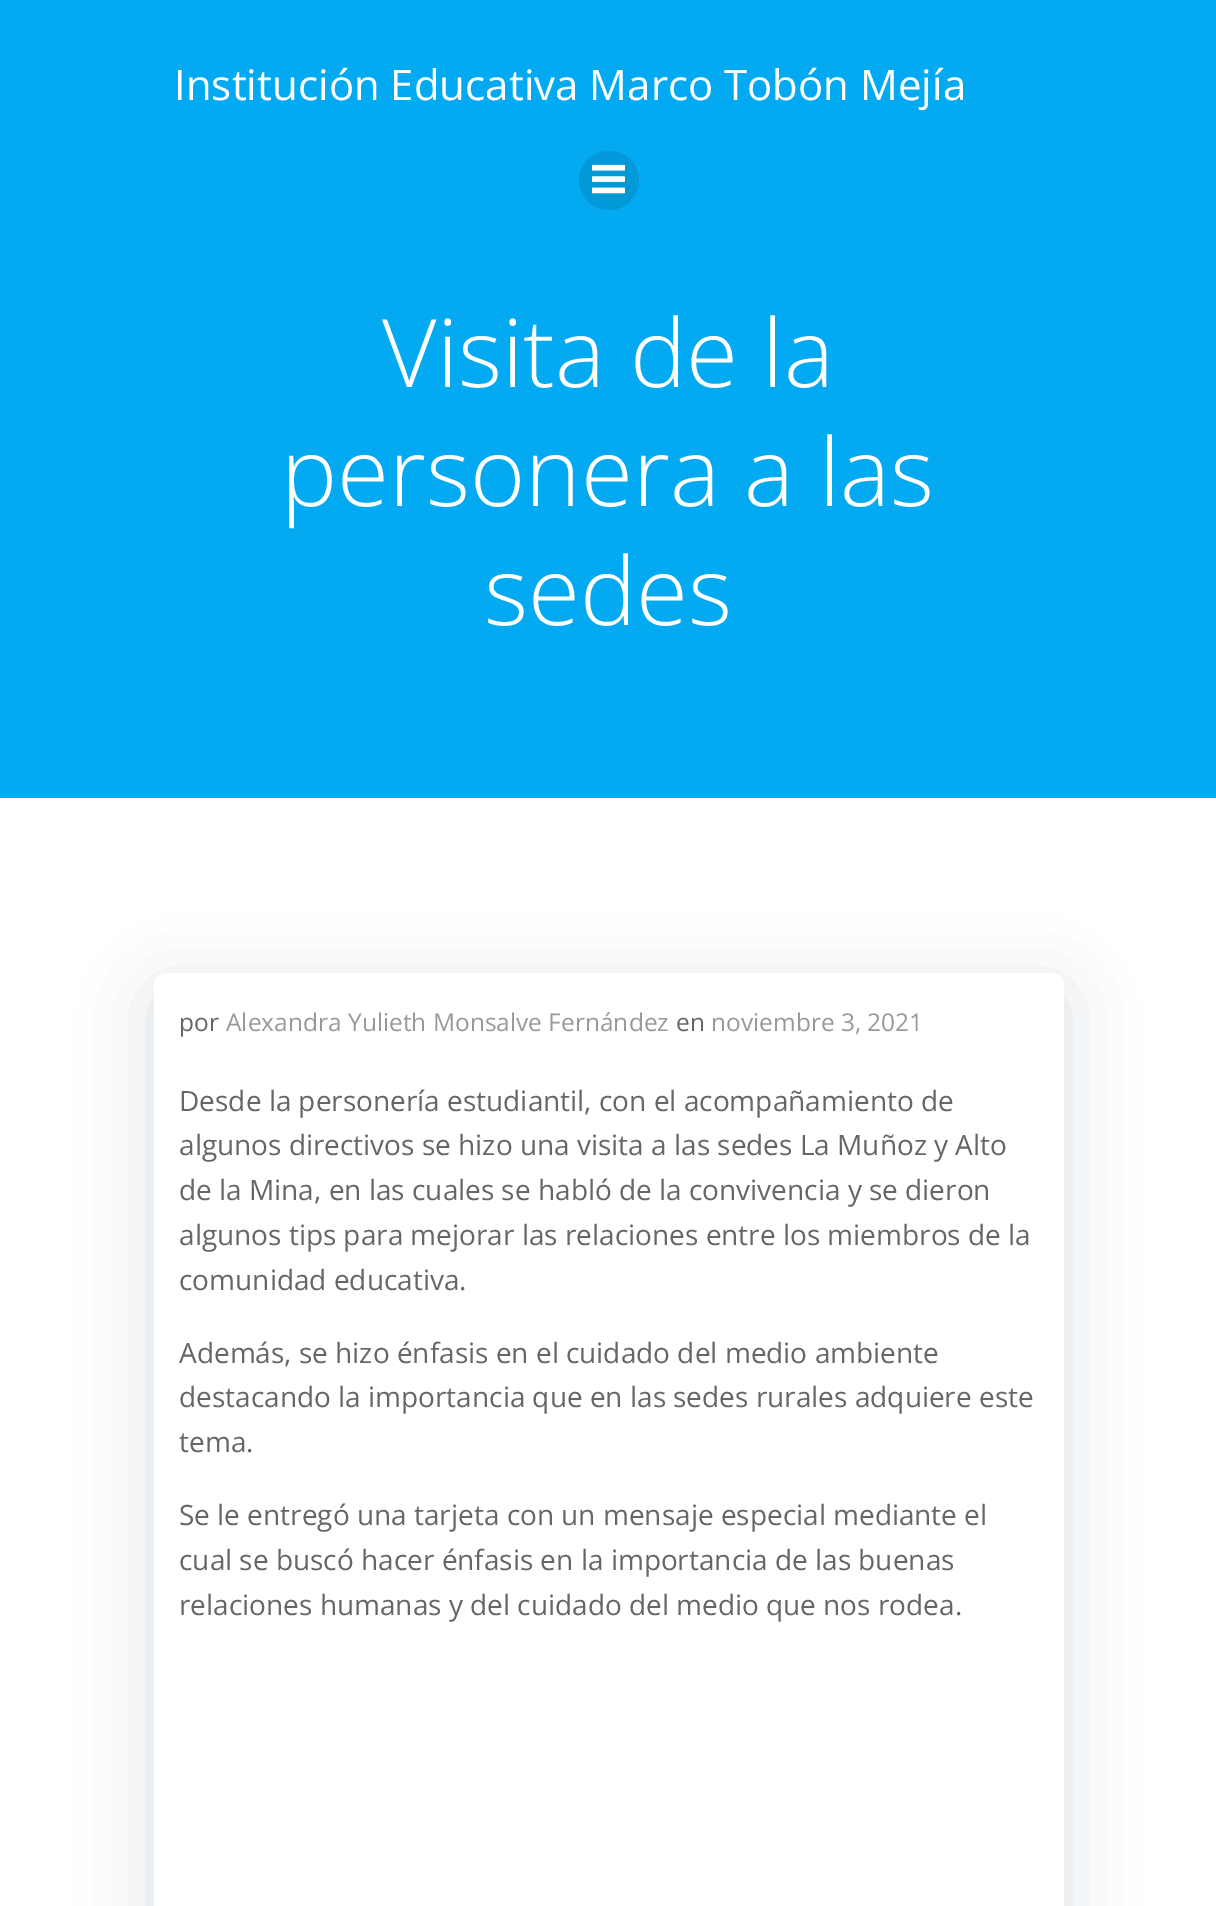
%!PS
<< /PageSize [1216 1906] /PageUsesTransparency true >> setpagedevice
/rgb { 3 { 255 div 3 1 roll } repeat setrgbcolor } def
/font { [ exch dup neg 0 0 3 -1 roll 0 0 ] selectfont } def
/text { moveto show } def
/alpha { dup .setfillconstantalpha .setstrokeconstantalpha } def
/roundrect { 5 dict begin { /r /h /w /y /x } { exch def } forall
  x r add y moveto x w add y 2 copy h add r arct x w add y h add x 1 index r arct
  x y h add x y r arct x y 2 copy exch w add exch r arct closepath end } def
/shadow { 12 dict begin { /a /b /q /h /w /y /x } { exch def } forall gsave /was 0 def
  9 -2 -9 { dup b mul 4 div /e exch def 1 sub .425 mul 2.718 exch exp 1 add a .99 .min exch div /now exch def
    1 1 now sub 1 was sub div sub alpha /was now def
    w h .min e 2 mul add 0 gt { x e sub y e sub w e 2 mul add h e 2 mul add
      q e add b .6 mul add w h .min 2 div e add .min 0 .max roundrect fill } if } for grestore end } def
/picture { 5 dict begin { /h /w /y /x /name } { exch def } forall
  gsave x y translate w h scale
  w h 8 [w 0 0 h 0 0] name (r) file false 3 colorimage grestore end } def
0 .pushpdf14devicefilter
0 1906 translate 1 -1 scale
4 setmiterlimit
255 255 255 rgb
0 0 1216 1906 rectfill
3 170 241 rgb
0 0 1216 798 rectfill
3 153 217 rgb
579 151 60 59 29.5 roundrect fill
(img_01.rgb) 592 164 33 30 picture
gsave
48 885 moveto 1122 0 rlineto 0 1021 rlineto -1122 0 rlineto closepath 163 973 moveto 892 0 rlineto 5 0 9 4 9 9 rcurveto 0 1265 rlineto 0 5 -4 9 -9 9 rcurveto -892 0 rlineto -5 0 -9 -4 -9 -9 rcurveto 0 -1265 rlineto 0 -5 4 -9 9 -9 rcurveto closepath eoclip newpath
1 51 74 rgb
154 991 910 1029 9 35 0.15 shadow
grestore
/OpenSans-Regular 42 font
255 255 255 rgb
(Institución Educativa Marco Tobón Mejía) 174 100 text
/OpenSans-Light 94.5 font
(Visita de la) 382 387 text
(personera a las) 281 506 text
(sedes) 484 625 text
/OpenSans-Regular 24.5 font
102 102 102 rgb
(por) 179 1031 text
153 153 153 rgb
(Alexandra Yulieth Monsalve Fernández) 226 1031 text
102 102 102 rgb
(en) 676 1031 text
153 153 153 rgb
(noviembre 3, 2021) 711 1031 text
/OpenSans-Regular 28 font
102 102 102 rgb
(Desde la personería estudiantil, con el acompañamiento de) 179 1111 text
(algunos directivos se hizo una visita a las sedes La Muñoz y Alto) 179 1155 text
(de la Mina, en las cuales se habló de la convivencia y se dieron) 179 1200 text
(algunos tips para mejorar las relaciones entre los miembros de la) 179 1245 text
(comunidad educativa.) 179 1290 text
(Además, se hizo énfasis en el cuidado del medio ambiente) 179 1363 text
(destacando la importancia que en las sedes rurales adquiere este) 179 1407 text
(tema.) 179 1452 text
(Se le entregó una tarjeta con un mensaje especial mediante el) 179 1525 text
(cual se buscó hacer énfasis en la importancia de las buenas) 179 1570 text
(relaciones humanas y del cuidado del medio que nos rodea.) 179 1615 text
.poppdf14devicefilter showpage
